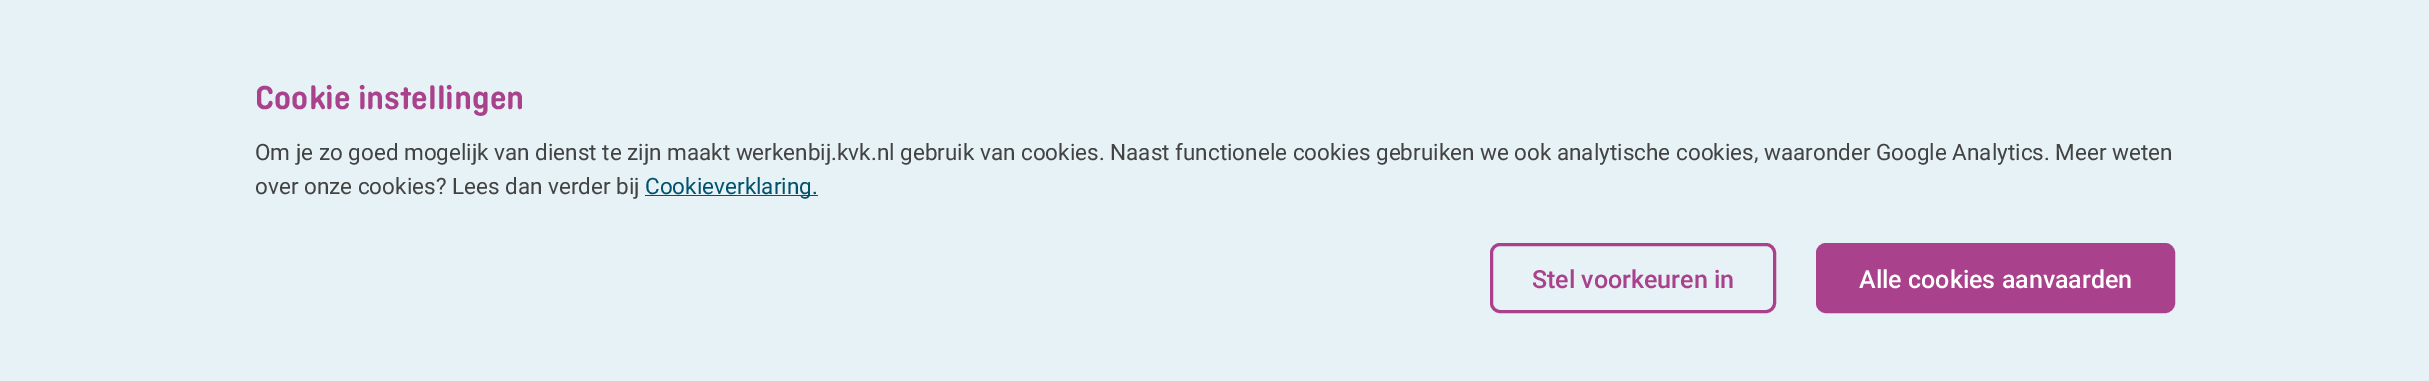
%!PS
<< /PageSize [2429 381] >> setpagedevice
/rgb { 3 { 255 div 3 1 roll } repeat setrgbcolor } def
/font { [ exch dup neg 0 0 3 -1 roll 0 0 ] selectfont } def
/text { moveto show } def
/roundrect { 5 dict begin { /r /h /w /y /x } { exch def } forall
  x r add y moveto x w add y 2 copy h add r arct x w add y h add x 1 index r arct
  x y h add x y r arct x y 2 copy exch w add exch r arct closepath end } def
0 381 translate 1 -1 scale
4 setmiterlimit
230 242 245 rgb
0 0 2429 381 rectfill
0 82 110 rgb
645 195 173 1 rectfill
170 65 140 rgb
3 setlinewidth
1491.5 244.5 283 67 8.5 roundrect stroke
1817.5 244.5 356 67 8.5 roundrect gsave fill grestore
stroke
/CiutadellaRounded-SemiBold 35 font
(Cookie instellingen) 255 109 text
/Roboto-Regular 22.5 font
67 67 67 rgb
(Om je zo goed mogelijk van dienst te zijn maakt werkenbij.kvk.nl gebruik van cookies. Naast functionele cookies gebruiken we ook analytische cookies, waaronder Google Analytics. Meer weten) 255 160 text
(over onze cookies? Lees dan verder bij) 255 194 text
0 82 110 rgb
(Cookieverklaring.) 645 194 text
/Roboto-Medium 25 font
170 65 140 rgb
(Stel voorkeuren in) 1532 288 text
255 255 255 rgb
(Alle cookies aanvaarden) 1859 288 text
showpage
